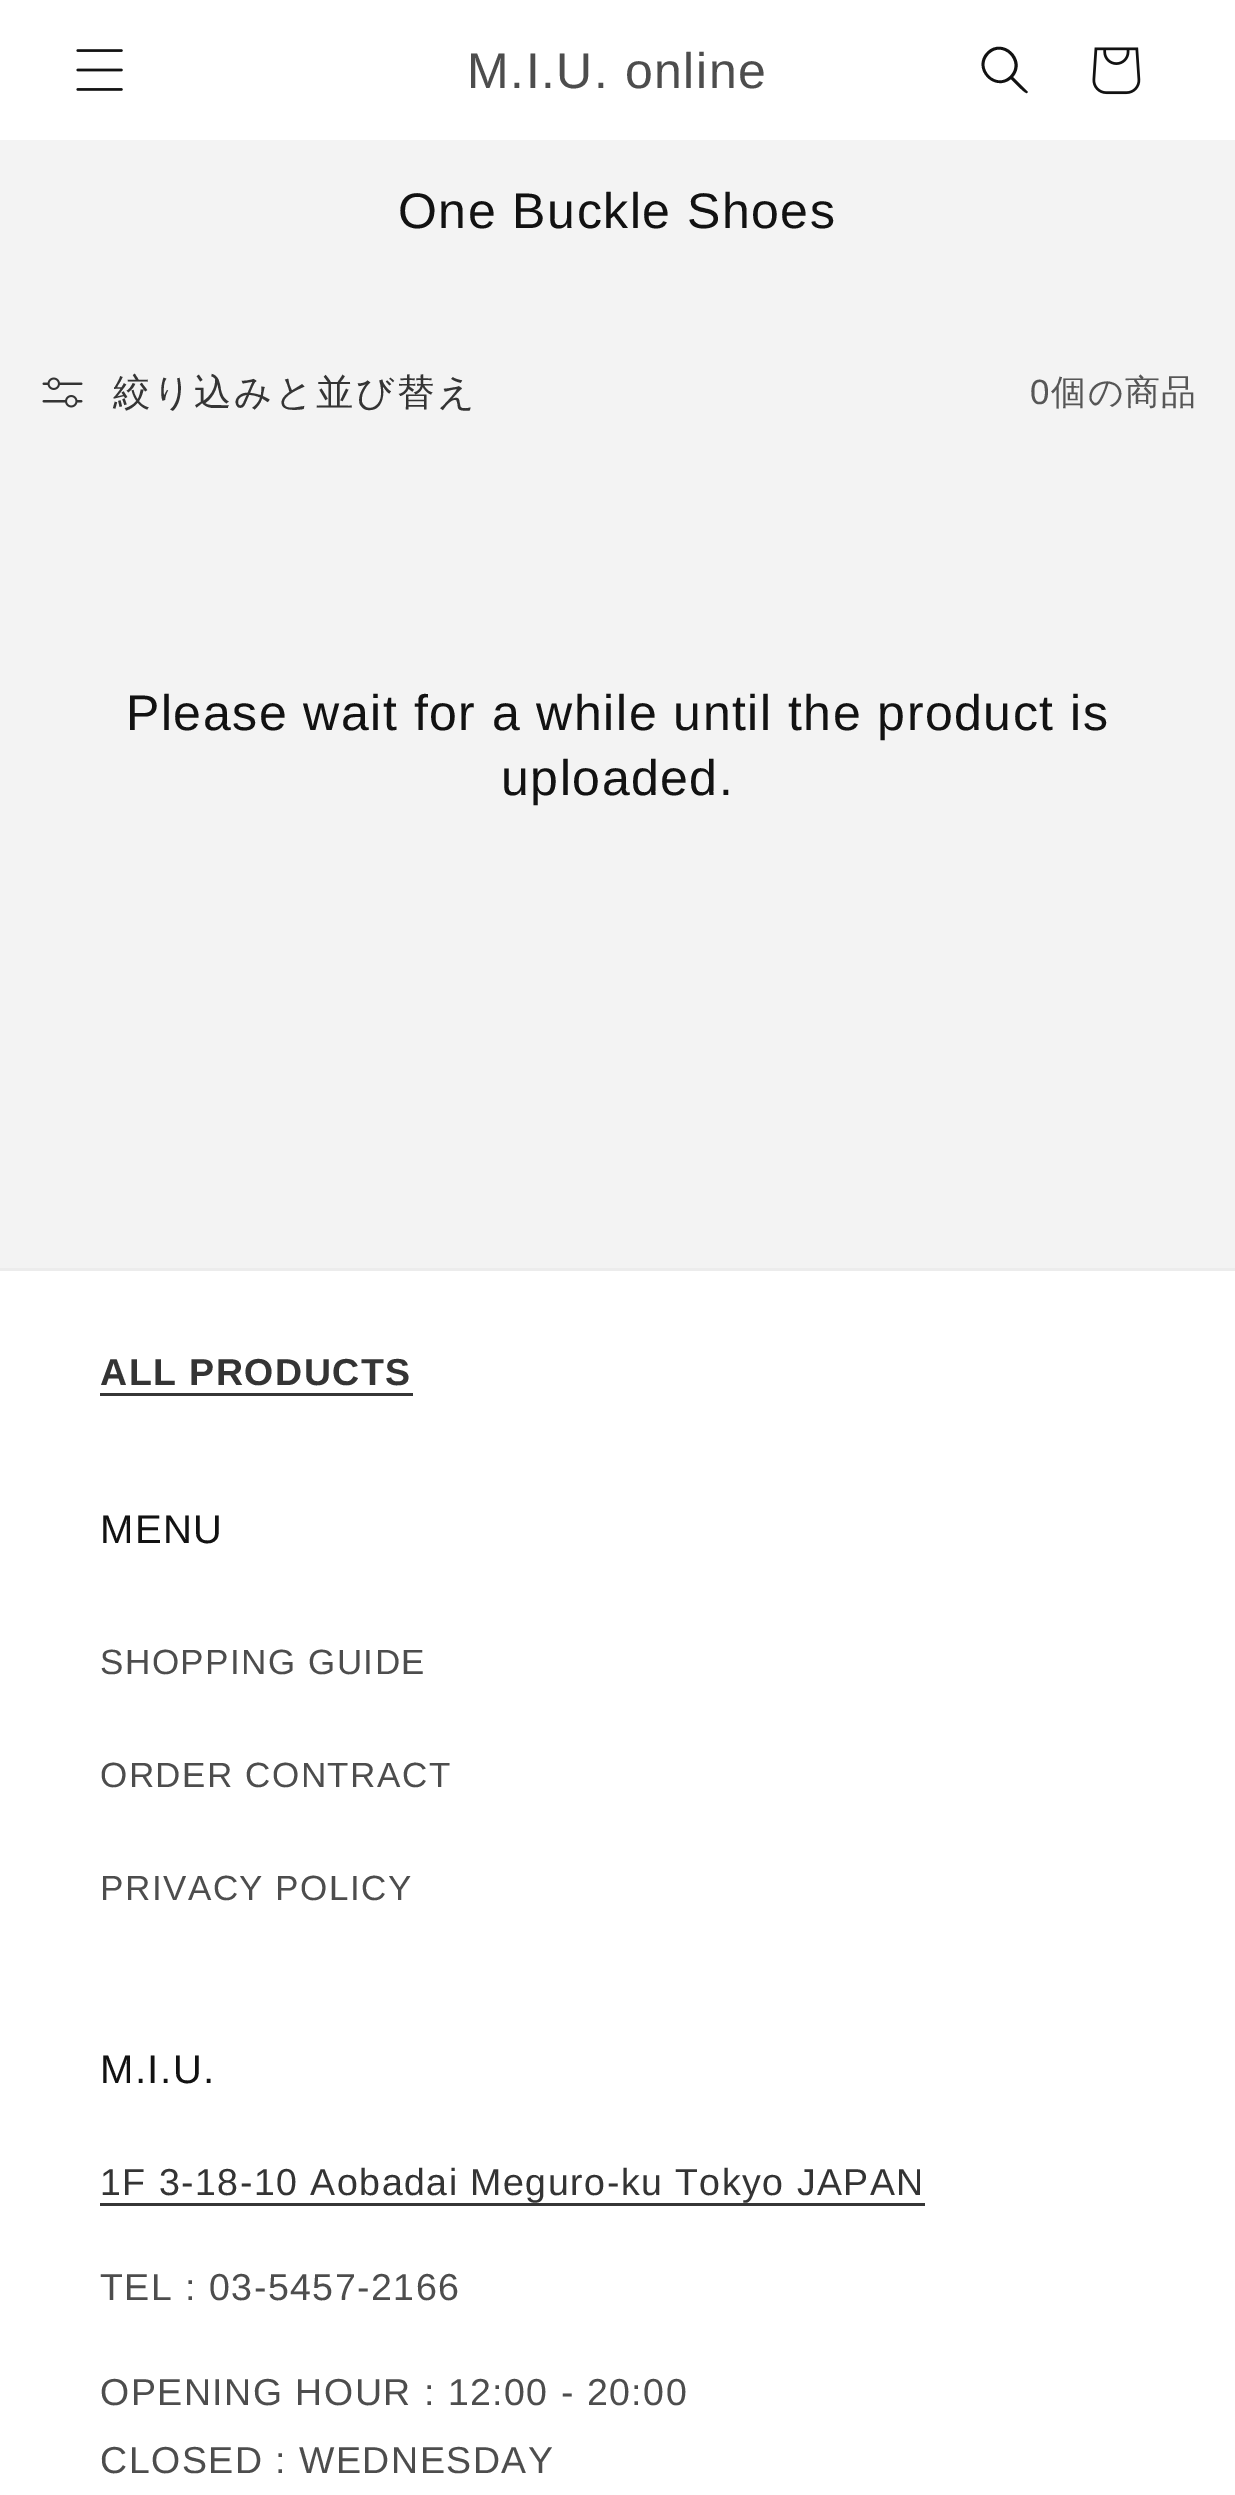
%!PS
<< /PageSize [1235 2495] >> setpagedevice
/rgb { 3 { 255 div 3 1 roll } repeat setrgbcolor } def
/font { [ exch dup neg 0 0 3 -1 roll 0 0 ] selectfont } def
/picture { 5 dict begin { /h /w /y /x /name } { exch def } forall
  gsave x y translate w h scale
  w h 8 [w 0 0 h 0 0] name (r) file false 3 colorimage grestore end } def
0 2495 translate 1 -1 scale
4 setmiterlimit
255 255 255 rgb
0 0 1235 2495 rectfill
(img_01.rgb) 76 49 47 42 picture
18 18 18 rgb
1010 76 moveto -14 14 -35 -8 -21 -22 rcurveto 14 -14 35 8 21 22 rcurveto closepath 1011 79 moveto -17 14 -40 -11 -24 -27 rcurveto 16 -16 41 8 26 25 rcurveto 15 15 rlineto -1 1 rlineto -2 1 -14 -12 -16 -14 rcurveto closepath eofill
(img_02.rgb) 1092 47 49 48 picture
243 243 243 rgb
0 140 1235 1128 rectfill
(img_03.rgb) 42 377 41 31 picture
236 236 236 rgb
0 1268 1235 3 rectfill
54 54 54 rgb
100 1393 313 3 rectfill
100 2203 825 3 rectfill
/LiberationSans-Regular 50 font
77 77 77 rgb
467 88 moveto 1.5 0 (M.I.U. online) ashow
18 18 18 rgb
398 228 moveto 1.5 0 (One Buckle Shoes) ashow
/WenQuanYiZenHei-Medium 37.5 font
52 52 52 rgb
113 405 moveto 2.5 0 (絞り込みと並び替え) ashow
/LiberationSans-Regular 35 font
86 86 86 rgb
1030 404 moveto 1.5 0 (0) ashow
/WenQuanYiZenHei-Medium 35 font
1051 404 moveto 1.5 0 (個の商品) ashow
/LiberationSans-Regular 50 font
18 18 18 rgb
126 730 moveto 1.5 0 (Please wait for a while until the product is) ashow
501 795 moveto 1.5 0 (uploaded.) ashow
/LiberationSans-Bold 37.5 font
52 52 52 rgb
100 1385 moveto 1.5 0 (ALL PRODUCTS) ashow
/LiberationSans-Regular 40 font
18 18 18 rgb
100 1543 moveto 1.5 0 (MENU) ashow
/LiberationSans-Regular 35 font
77 77 77 rgb
100 1674 moveto 1.5 0 (SHOPPING GUIDE) ashow
100 1787 moveto 1.5 0 (ORDER CONTRACT) ashow
100 1900 moveto 1.5 0 (PRIVACY POLICY) ashow
/LiberationSans-Regular 40 font
18 18 18 rgb
100 2083 moveto 1.5 0 (M.I.U.) ashow
/LiberationSans-Regular 37.5 font
52 52 52 rgb
100 2195 moveto 1.5 0 (1F 3-18-10 Aobadai Meguro-ku Tokyo JAPAN) ashow
77 77 77 rgb
100 2300 moveto 1.5 0 (TEL : 03-5457-2166) ashow
100 2405 moveto 1.5 0 (OPENING HOUR : 12:00 - 20:00) ashow
100 2473 moveto 1.5 0 (CLOSED : WEDNESDAY) ashow
showpage
